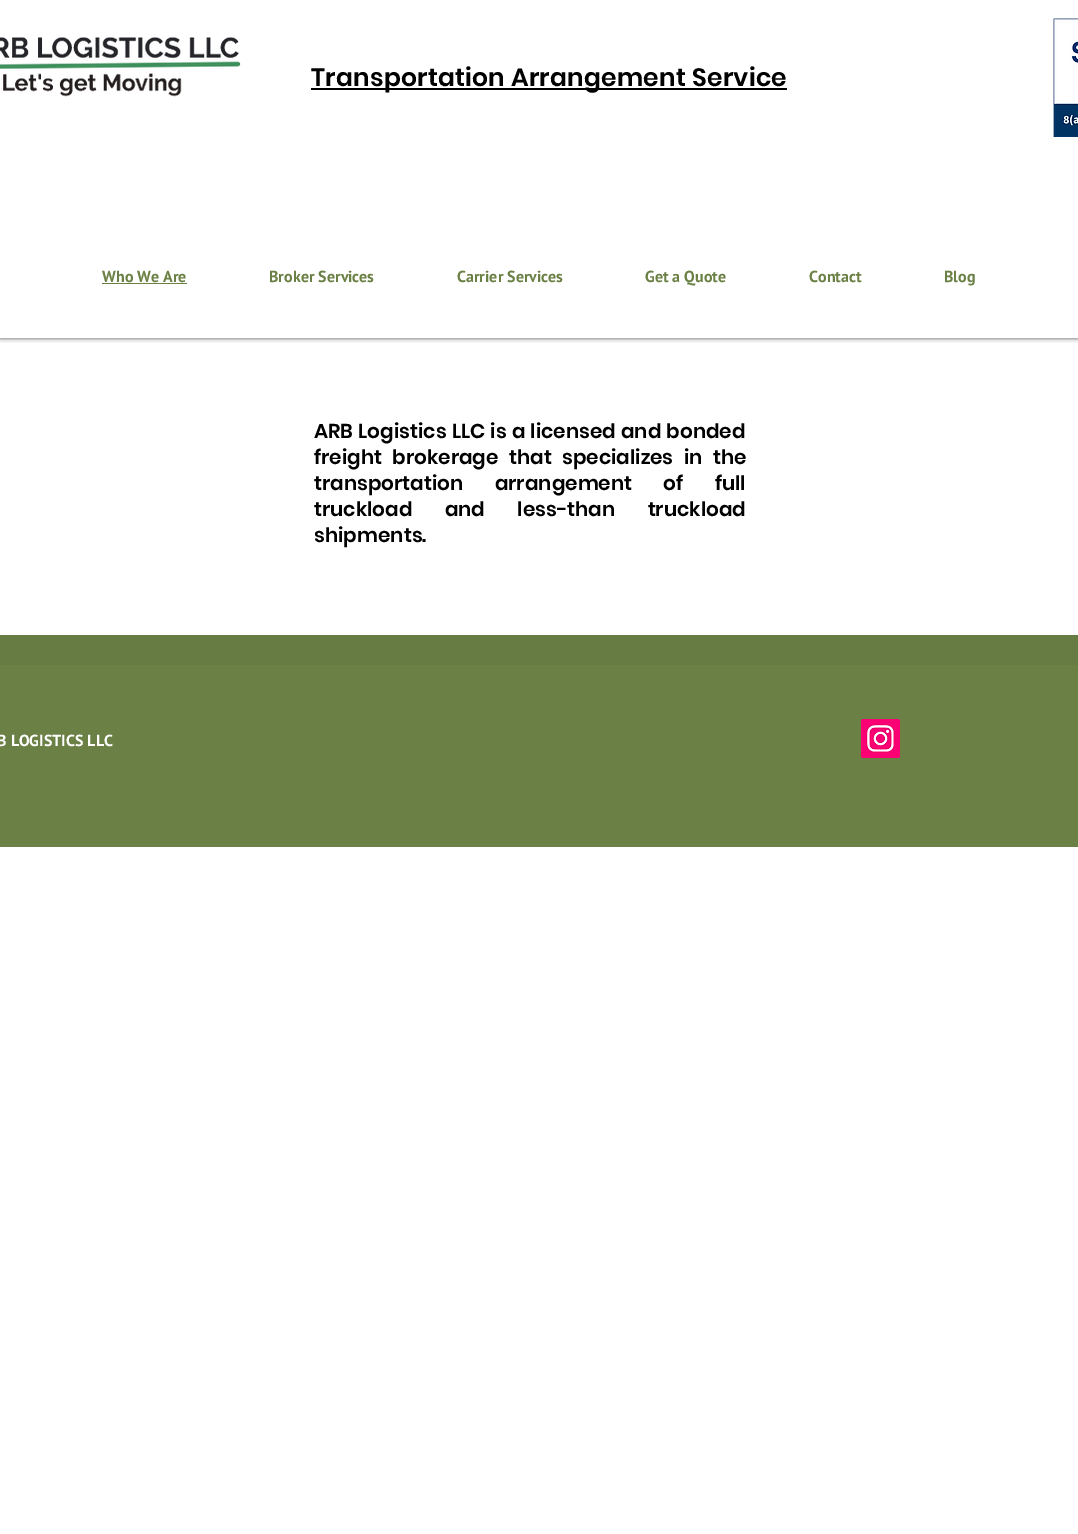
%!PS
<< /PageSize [1078 1534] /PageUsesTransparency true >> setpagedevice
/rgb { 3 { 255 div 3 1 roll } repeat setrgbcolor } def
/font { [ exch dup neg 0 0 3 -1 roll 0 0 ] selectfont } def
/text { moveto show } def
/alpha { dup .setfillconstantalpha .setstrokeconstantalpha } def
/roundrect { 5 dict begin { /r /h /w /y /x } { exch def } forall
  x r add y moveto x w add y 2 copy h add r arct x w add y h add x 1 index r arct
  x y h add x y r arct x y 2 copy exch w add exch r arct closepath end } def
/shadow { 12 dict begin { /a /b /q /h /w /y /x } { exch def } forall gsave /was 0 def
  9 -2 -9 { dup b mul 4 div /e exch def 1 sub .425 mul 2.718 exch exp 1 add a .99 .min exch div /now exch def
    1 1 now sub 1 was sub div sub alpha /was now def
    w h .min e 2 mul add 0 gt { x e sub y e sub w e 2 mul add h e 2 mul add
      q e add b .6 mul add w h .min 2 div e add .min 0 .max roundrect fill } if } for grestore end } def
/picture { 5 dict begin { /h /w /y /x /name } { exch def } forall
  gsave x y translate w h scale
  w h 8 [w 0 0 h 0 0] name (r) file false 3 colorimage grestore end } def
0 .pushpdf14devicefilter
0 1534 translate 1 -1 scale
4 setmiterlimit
255 255 255 rgb
0 0 1078 1534 rectfill
gsave
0 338 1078 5 rectclip
0 0 0 rgb
0 0 1078 338 0 2.5 0.7 shadow
grestore
(img_01.rgb) 0 37 241 60 picture
0 0 0 rgb
311 88 476 2 rectfill
(img_02.rgb) 1053 18 25 119 picture
106 128 68 rgb
102 283 85 1 rectfill
0 665 1078 182 rectfill
103 124 67 rgb
0 635 1078 30 rectfill
(img_03.rgb) 861 719 39 39 picture
/Poppins-SemiBold 25 font
0 0 0 rgb
311 86 moveto 0.25 0 (Transportation Arrangement Service) ashow
/PTSans-Bold 16 font
106 128 68 rgb
(Who We Are) 102 282 text
(Broker Services) 269 282 text
(Carrier Services) 457 282 text
(Get a Quote) 645 282 text
(Contact) 809 282 text
(Blog) 944 282 text
/Poppins-SemiBold 20 font
0 0 0 rgb
314 438 moveto 0.75 0 32 (ARB Logistics LLC is a licensed and bonded) widthshow
314 464 moveto 6 0 32 (freight brokerage that specializes in the) widthshow
314 490 moveto 27 0 32 (transportation arrangement of full) widthshow
314 516 moveto 28 0 32 (truckload and less-than truckload) widthshow
(shipments.) 314 542 text
/PTSans-Bold 16 font
255 255 255 rgb
(B LOGISTICS LLC) -3 746 text
.poppdf14devicefilter showpage
